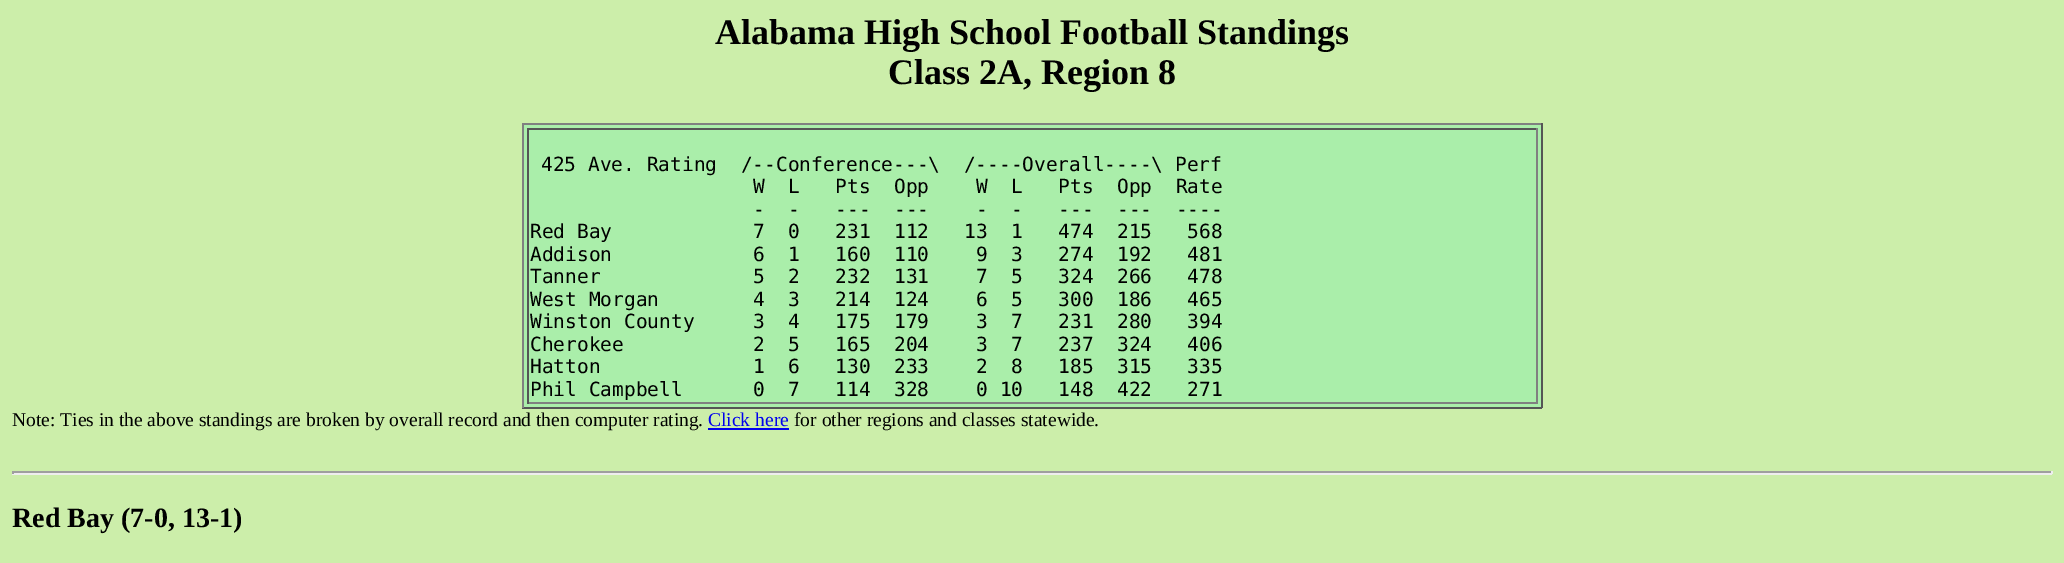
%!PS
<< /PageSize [2064 563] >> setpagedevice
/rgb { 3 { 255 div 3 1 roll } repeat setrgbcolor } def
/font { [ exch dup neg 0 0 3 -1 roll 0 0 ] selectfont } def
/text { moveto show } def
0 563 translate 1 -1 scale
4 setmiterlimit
204 238 170 rgb
0 0 2064 563 rectfill
170 238 170 rgb
524 125 1017 282 rectfill
128 128 128 rgb
522 123 1020 2 rectfill
85 85 85 rgb
1541 123 2 285 rectfill
522 407 1020 2 rectfill
128 128 128 rgb
522 123 2 285 rectfill
85 85 85 rgb
527 128 1011 2 rectfill
128 128 128 rgb
1536 128 2 276 rectfill
527 402 1011 2 rectfill
85 85 85 rgb
527 128 2 276 rectfill
0 0 238 rgb
708 428 81 2 rectfill
159 159 159 rgb
12 471 2040 2 rectfill
238 238 238 rgb
2051 471 2 3 rectfill
12 473 2040 2 rectfill
159 159 159 rgb
12 471 2 3 rectfill
/LiberationSerif-Bold 36 font
0 0 0 rgb
(Alabama High School Football Standings) 715 44 text
(Class 2A, Region 8) 888 84 text
/DejaVuSansMono-Regular 19.5 font
(425 Ave. Rating  /--Conference---\\  /----Overall----\\ Perf) 541 171 text
(W  L   Pts  Opp    W  L   Pts  Opp  Rate) 753 193 text
(-  -   ---  ---    -  -   ---  ---  ----) 753 216 text
(Red Bay            7  0   231  112   13  1   474  215   568) 530 238 text
(Addison            6  1   160  110    9  3   274  192   481) 530 261 text
(Tanner             5  2   232  131    7  5   324  266   478) 530 283 text
(West Morgan        4  3   214  124    6  5   300  186   465) 530 306 text
(Winston County     3  4   175  179    3  7   231  280   394) 530 328 text
(Cherokee           2  5   165  204    3  7   237  324   406) 530 351 text
(Hatton             1  6   130  233    2  8   185  315   335) 530 373 text
(Phil Campbell      0  7   114  328    0 10   148  422   271) 530 396 text
/LiberationSerif-Regular 19.5 font
(Note: Ties in the above standings are broken by overall record and then computer rating.) 12 426 text
0 0 238 rgb
(Click here) 708 426 text
0 0 0 rgb
(for other regions and classes statewide.) 794 426 text
/LiberationSerif-Bold 28 font
(Red Bay \(7-0, 13-1\)) 12 527 text
showpage
